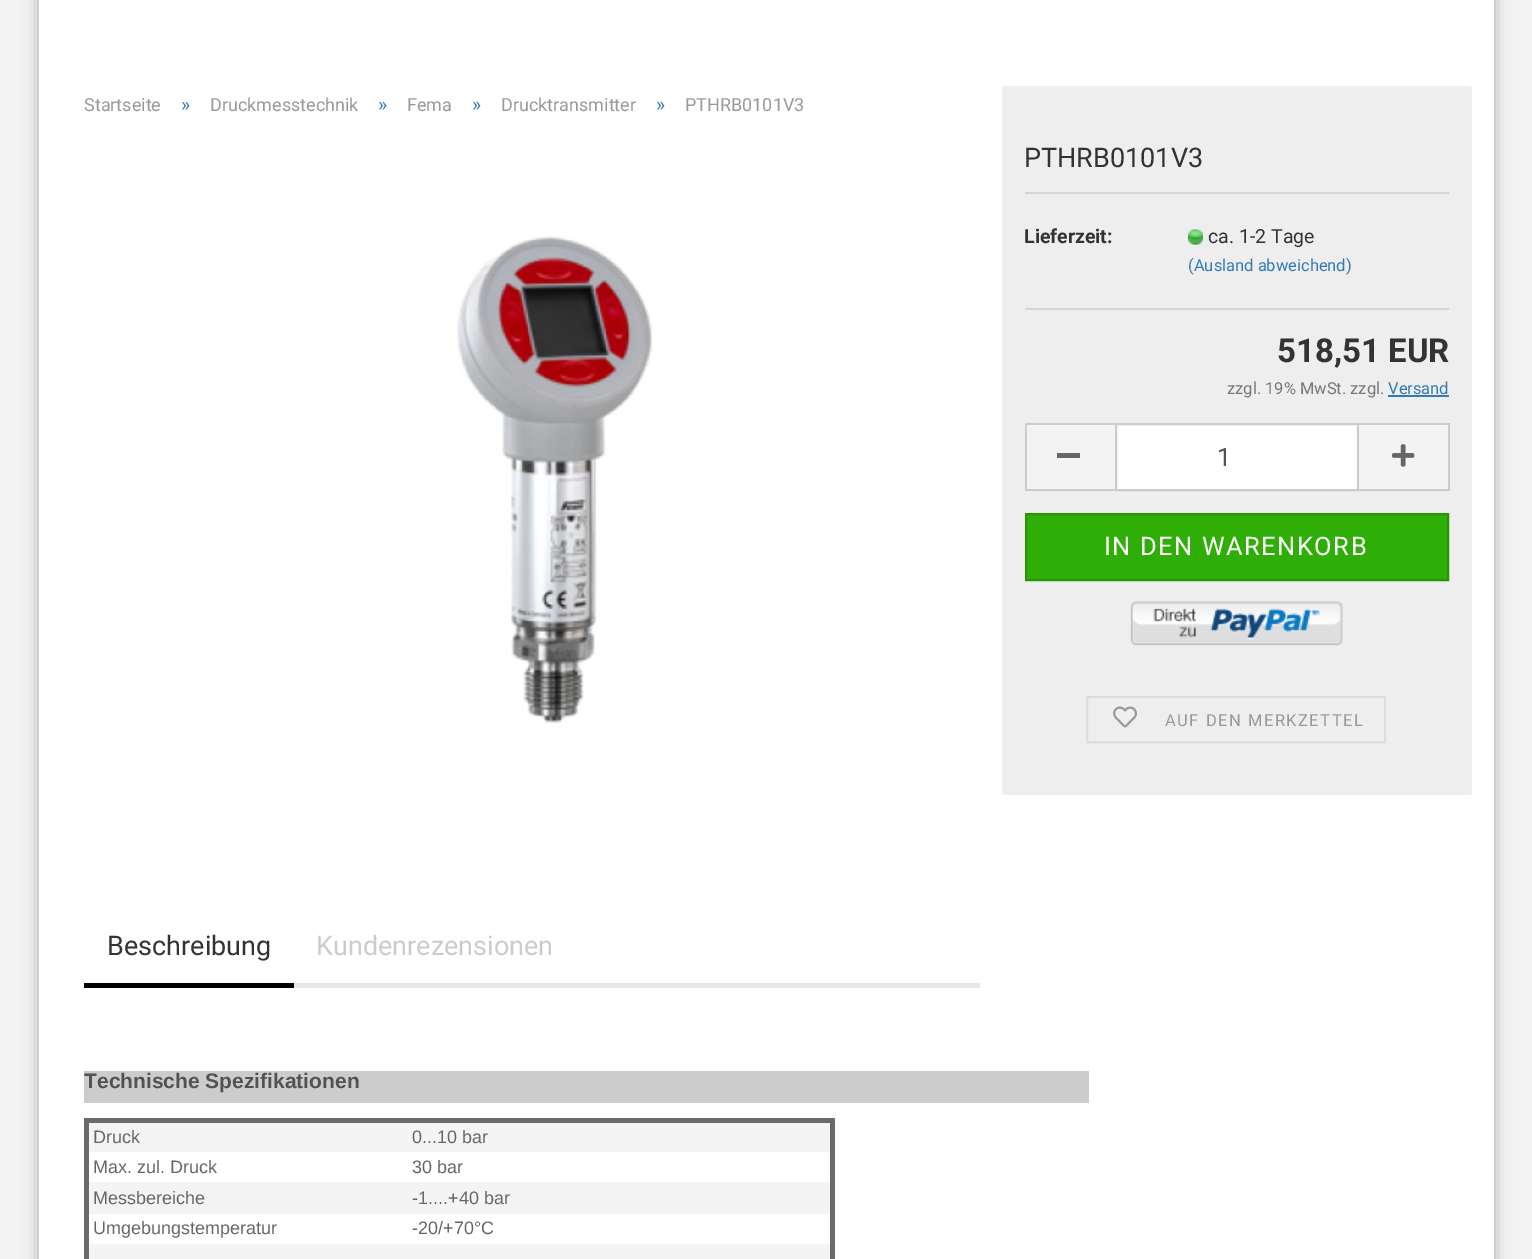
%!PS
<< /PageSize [1532 1259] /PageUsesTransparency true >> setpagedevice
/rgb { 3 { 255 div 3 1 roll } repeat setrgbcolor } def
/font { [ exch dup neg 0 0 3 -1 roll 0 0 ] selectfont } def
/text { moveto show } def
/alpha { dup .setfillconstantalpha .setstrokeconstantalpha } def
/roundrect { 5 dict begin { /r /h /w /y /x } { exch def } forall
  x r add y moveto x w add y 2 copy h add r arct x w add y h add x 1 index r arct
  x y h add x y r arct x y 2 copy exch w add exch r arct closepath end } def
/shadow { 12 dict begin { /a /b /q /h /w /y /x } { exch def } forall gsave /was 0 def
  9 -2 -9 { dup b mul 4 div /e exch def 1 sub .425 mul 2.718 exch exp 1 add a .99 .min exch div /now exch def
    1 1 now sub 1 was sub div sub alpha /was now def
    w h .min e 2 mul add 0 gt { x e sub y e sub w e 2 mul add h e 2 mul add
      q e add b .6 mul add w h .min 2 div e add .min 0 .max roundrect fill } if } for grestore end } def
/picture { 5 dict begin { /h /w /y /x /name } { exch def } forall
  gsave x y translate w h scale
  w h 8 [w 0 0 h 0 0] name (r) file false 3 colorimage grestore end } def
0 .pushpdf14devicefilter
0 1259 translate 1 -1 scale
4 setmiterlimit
243 243 243 rgb
0 0 1532 1259 rectfill
0 0 0 rgb
39 -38 1455 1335 15 7.5 0.3 shadow
255 255 255 rgb
39 0 1455 1259 rectfill
(img_01.rgb) 457 236 196 488 picture
238 238 238 rgb
1002 86 470 709 3 roundrect fill
213 213 213 rgb
1025 192 424 2 rectfill
1025 308 424 2 rectfill
(img_02.rgb) 1188 229 15 16 picture
51 122 183 rgb
1388 395 61 2 rectfill
243 243 243 rgb
1027 425 88 64 rectfill
204 204 204 rgb
1025 423 90 2 rectfill
1025 489 90 2 rectfill
1025 423 2 68 rectfill
102 102 102 rgb
1057 453 23 5 rectfill
255 255 255 rgb
1116 424 moveto 242 0 rlineto 0 66 rlineto -242 0 rlineto closepath gsave fill grestore
204 204 204 rgb
2 setlinewidth
stroke
243 243 243 rgb
1359 425 89 64 rectfill
204 204 204 rgb
1359 423 90 2 rectfill
1448 423 2 68 rectfill
1359 489 90 2 rectfill
(img_03.rgb) 1392 444 23 23 picture
46 174 6 rgb
1026 514 moveto 422 0 rlineto 0 66 rlineto -422 0 rlineto closepath gsave fill grestore
39 149 5 rgb
stroke
(img_04.rgb) 1130 601 213 45 picture
221 221 221 rgb
1087 697 298 45 rectstroke
(img_05.rgb) 1113 706 24 22 picture
231 231 231 rgb
294 983 686 5 rectfill
0 0 0 rgb
84 983 210 5 rectfill
204 204 204 rgb
84 1071 1005 32 rectfill
106 106 106 rgb
84 1118 750 5 rectfill
830 1118 5 141 rectfill
84 1118 5 141 rectfill
244 244 244 rgb
89 1123 741 29 rectfill
89 1182 741 32 rectfill
89 1244 741 15 rectfill
/Roboto-Regular 18 font
153 153 153 rgb
(Startseite) 84 111 text
/Roboto-Regular 19.5 font
51 122 183 rgb
(») 181 111 text
/Roboto-Regular 18 font
153 153 153 rgb
(Druckmesstechnik) 210 111 text
/Roboto-Regular 19.5 font
51 122 183 rgb
(») 378 111 text
/Roboto-Regular 18 font
153 153 153 rgb
(Fema) 407 111 text
/Roboto-Regular 19.5 font
51 122 183 rgb
(») 472 111 text
/Roboto-Regular 18 font
153 153 153 rgb
(Drucktransmitter) 501 111 text
/Roboto-Regular 19.5 font
51 122 183 rgb
(») 656 111 text
/Roboto-Regular 18 font
153 153 153 rgb
(PTHRB0101V3) 685 111 text
/Roboto-Regular 27 font
51 51 51 rgb
(PTHRB0101V3) 1024 167 text
/Roboto-Bold 19.5 font
(Lieferzeit:) 1024 243 text
/Roboto-Regular 19.5 font
(ca. 1-2 Tage) 1208 243 text
/Roboto-Regular 16.5 font
51 122 183 rgb
(\(Ausland abweichend\)) 1188 271 text
/Roboto-Bold 33 font
51 51 51 rgb
(518,51 EUR) 1277 362 text
/Roboto-Regular 16.5 font
119 119 119 rgb
(zzgl. 19% MwSt. zzgl.) 1227 394 text
51 122 183 rgb
(Versand) 1388 394 text
/Roboto-Regular 25.5 font
82 82 82 rgb
(1) 1217 466 text
255 255 255 rgb
1104 555 moveto 1.5 0 (IN DEN WARENKORB) ashow
/Roboto-Regular 16.5 font
153 153 153 rgb
1165 726 moveto 1.5 0 (AUF DEN MERKZETTEL) ashow
/Roboto-Regular 27 font
51 51 51 rgb
(Beschreibung) 107 955 text
204 204 204 rgb
(Kundenrezensionen) 316 955 text
/LiberationSans-Bold 21 font
82 82 82 rgb
(Technische Spezifikationen) 84 1088 text
/LiberationSans-Regular 18 font
102 102 102 rgb
(Druck) 93 1143 text
(0...10 bar) 412 1143 text
(Max. zul. Druck) 93 1173 text
(30 bar) 412 1173 text
(Messbereiche) 93 1204 text
(-1....+40 bar) 412 1204 text
(Umgebungstemperatur) 93 1234 text
(-20/+70°C) 412 1234 text
.poppdf14devicefilter showpage
